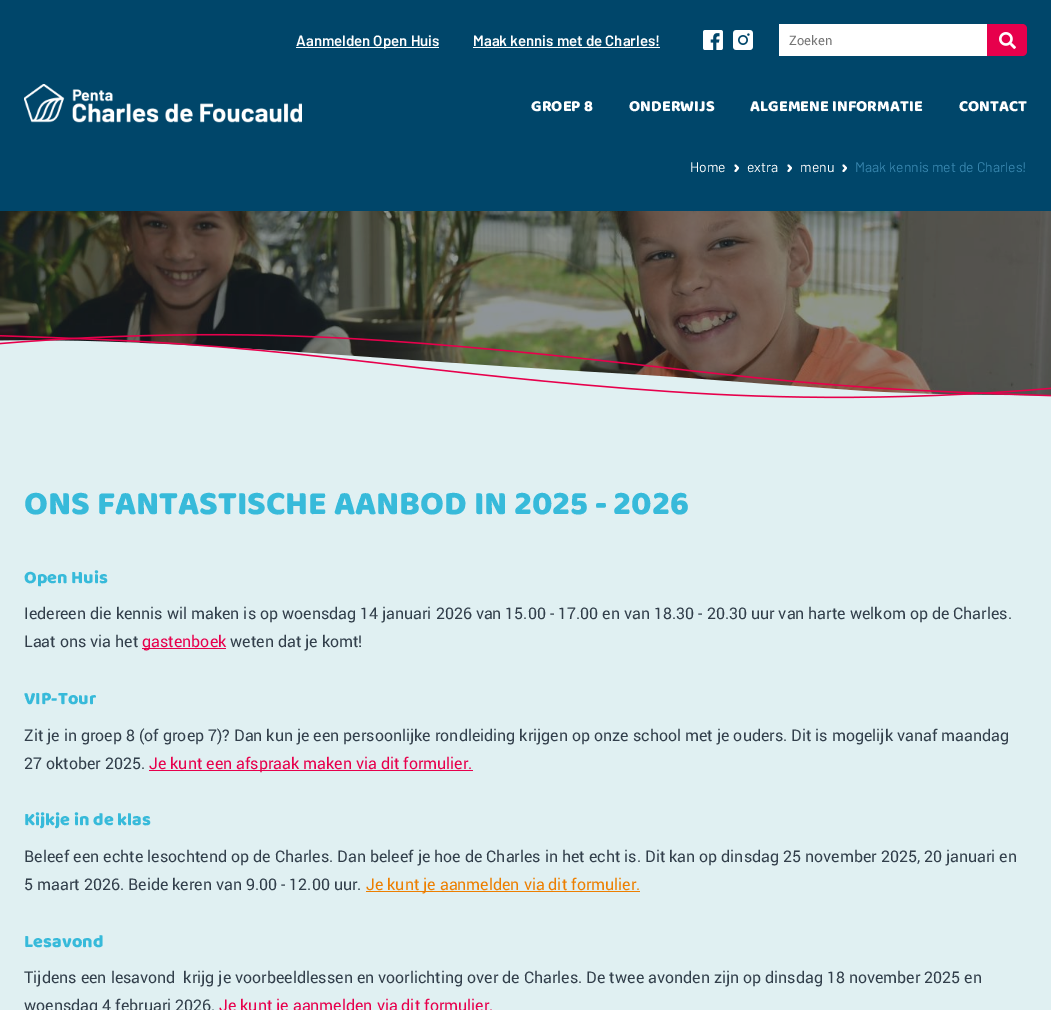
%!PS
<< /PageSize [1051 1010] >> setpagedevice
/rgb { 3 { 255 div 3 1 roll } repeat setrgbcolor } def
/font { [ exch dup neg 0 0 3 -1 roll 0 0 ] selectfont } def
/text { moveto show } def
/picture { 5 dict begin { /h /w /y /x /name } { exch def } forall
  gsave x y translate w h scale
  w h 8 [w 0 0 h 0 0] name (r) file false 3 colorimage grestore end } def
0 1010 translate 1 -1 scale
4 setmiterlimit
224 240 242 rgb
0 0 1051 1010 rectfill
0 70 106 rgb
0 0 1051 211 rectfill
255 255 255 rgb
296 47 143 1 rectfill
473 47 187 1 rectfill
(img_01.rgb) 703 30 20 20 picture
(img_02.rgb) 733 30 20 20 picture
779 24 208 32 rectfill
231 0 76 rgb
987 24 moveto 35 0 rlineto 3 0 5 2 5 5 rcurveto 0 22 rlineto 0 3 -2 5 -5 5 rcurveto -35 0 rlineto closepath fill
(img_03.rgb) 999 32 17 17 picture
(img_04.rgb) 24 84 278 39 picture
255 255 255 rgb
2 setlinewidth
1 setlinecap
1 setlinejoin
735.5 165.5 moveto 2.5 2.5 rlineto -2.5 3 rlineto 788.5 165.5 moveto 2.5 2.5 rlineto -2.5 3 rlineto stroke
843.5 165.5 moveto 2.5 2.5 rlineto -2.5 3 rlineto stroke
(img_05.rgb) 0 211 1051 185 picture
(img_06.rgb) 0 333 1051 74 picture
231 0 76 rgb
142 648 84 1 rectfill
149 770 324 1 rectfill
237 127 0 rgb
366 891 274 1 rectfill
/Barlow-SemiBold 15 font
255 255 255 rgb
(Aanmelden Open Huis) 296 46 text
(Maak kennis met de Charles!) 473 46 text
/Roboto-Regular 13 font
117 117 117 rgb
(Zoeken) 789 45 text
/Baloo-Regular 16 font
255 255 255 rgb
(GROEP 8) 531 111 text
(ONDERWIJS) 629 111 text
(ALGEMENE INFORMATIE) 750 111 text
(CONTACT) 959 111 text
/Barlow-Regular 14 font
(Home) 690 172 text
(extra) 747 172 text
55 133 173 rgb
(Maak kennis met de Charles!) 855 172 text
255 255 255 rgb
(menu) 800 172 text
/Baloo-Regular 34 font
55 186 218 rgb
(ONS FANTASTISCHE AANBOD IN 2025 - 2026) 24 514 text
/Baloo-Regular 18 font
(Open Huis) 24 583 text
/Roboto-Regular 16 font
50 63 75 rgb
(Iedereen die kennis wil maken is op woensdag 14 januari 2026 van 15.00 - 17.00 en van 18.30 - 20.30 uur van harte welkom op de Charles.) 24 619 text
(Laat ons via het) 24 647 text
231 0 76 rgb
(gastenboek) 142 647 text
50 63 75 rgb
(weten dat je komt!) 230 647 text
/Baloo-Regular 18 font
55 186 218 rgb
(VIP-Tour) 24 704 text
/Roboto-Regular 16 font
50 63 75 rgb
(Zit je in groep 8 \(of groep 7\)? Dan kun je een persoonlijke rondleiding krijgen op onze school met je ouders. Dit is mogelijk vanaf maandag) 24 741 text
(27 oktober 2025.) 24 769 text
231 0 76 rgb
(Je kunt een afspraak maken via dit formulier.) 149 769 text
/Baloo-Regular 18 font
55 186 218 rgb
(Kijkje in de klas) 24 825 text
/Roboto-Regular 16 font
50 63 75 rgb
(Beleef een echte lesochtend op de Charles. Dan beleef je hoe de Charles in het echt is. Dit kan op dinsdag 25 november 2025, 20 januari en) 24 862 text
(5 maart 2026. Beide keren van 9.00 - 12.00 uur.) 24 890 text
237 127 0 rgb
(Je kunt je aanmelden via dit formulier.) 366 890 text
/Baloo-Regular 18 font
55 186 218 rgb
(Lesavond) 24 947 text
/Roboto-Regular 16 font
50 63 75 rgb
(Tijdens een lesavond  krijg je voorbeeldlessen en voorlichting over de Charles. De twee avonden zijn op dinsdag 18 november 2025 en) 24 983 text
(woensdag 4 februari 2026.) 24 1011 text
231 0 76 rgb
(Je kunt je aanmelden via dit formulier.) 219 1011 text
showpage
